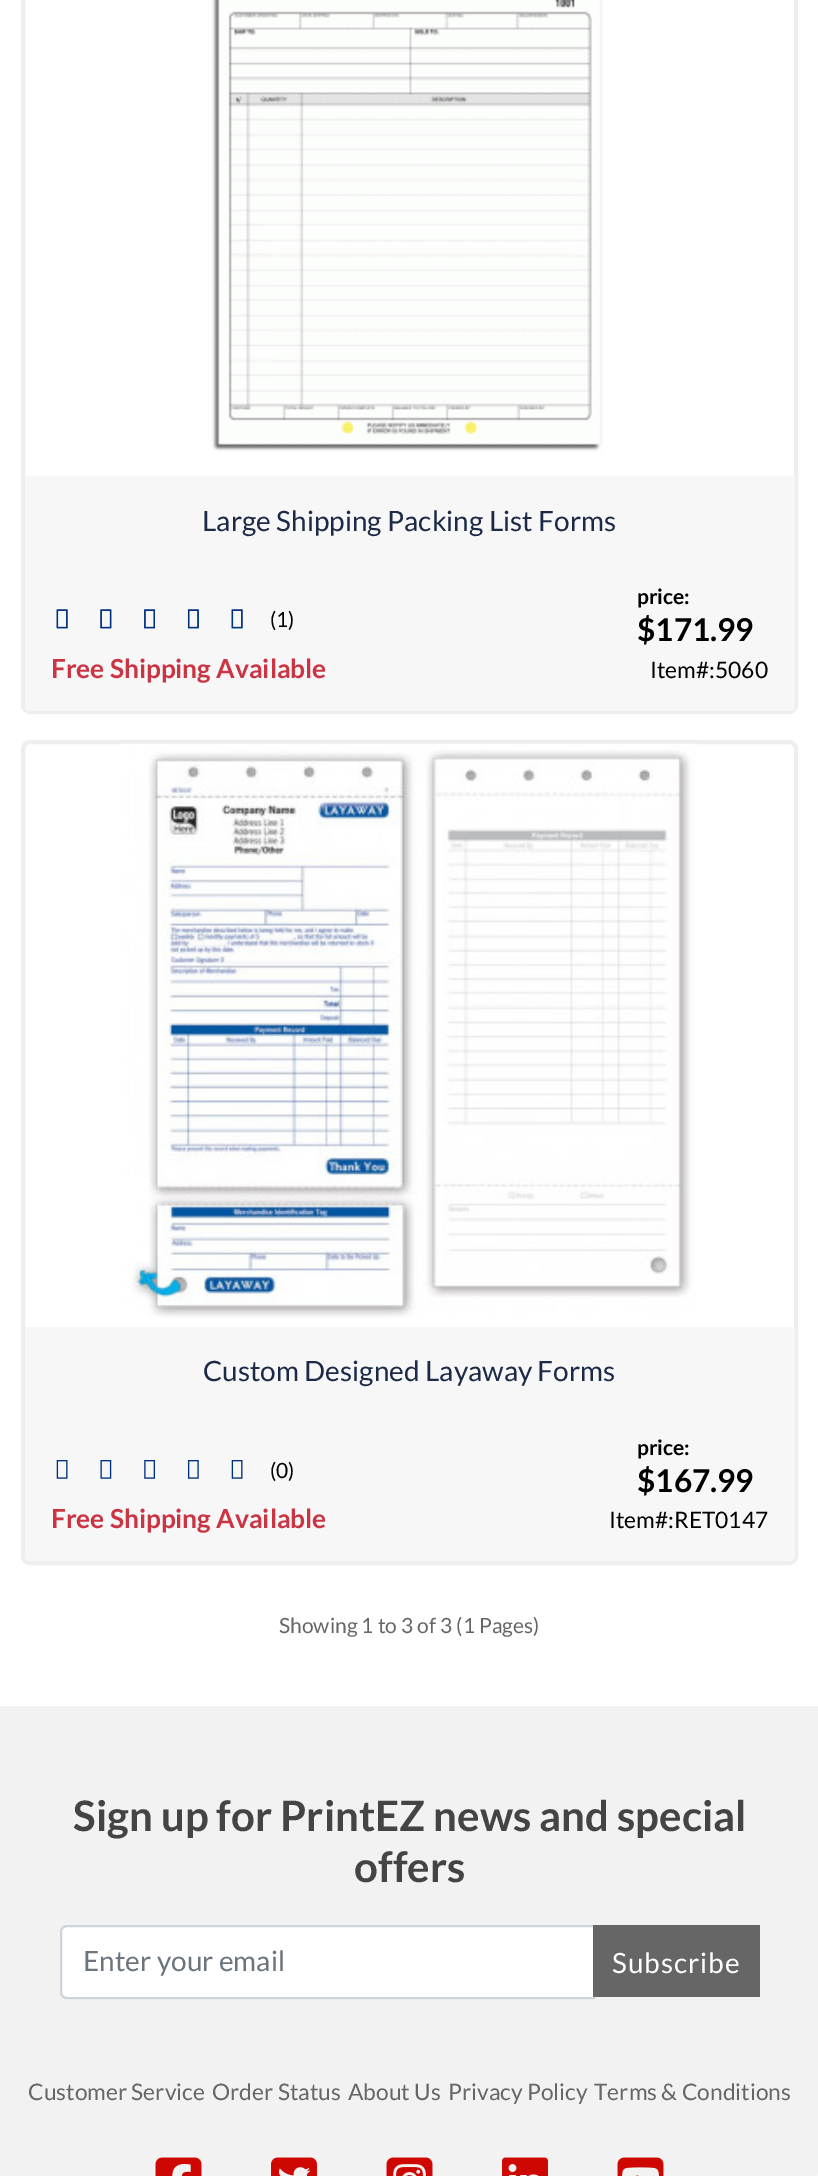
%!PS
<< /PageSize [818 2176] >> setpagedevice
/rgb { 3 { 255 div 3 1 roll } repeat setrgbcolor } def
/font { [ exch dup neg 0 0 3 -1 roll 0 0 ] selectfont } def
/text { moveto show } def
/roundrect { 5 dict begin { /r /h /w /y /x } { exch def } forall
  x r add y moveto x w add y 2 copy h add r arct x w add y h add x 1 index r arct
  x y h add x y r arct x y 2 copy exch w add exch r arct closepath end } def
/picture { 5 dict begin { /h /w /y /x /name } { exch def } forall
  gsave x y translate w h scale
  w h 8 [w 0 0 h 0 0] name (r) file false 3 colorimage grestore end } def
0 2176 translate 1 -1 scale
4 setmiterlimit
255 255 255 rgb
0 0 818 2176 rectfill
238 238 238 rgb
4 setlinewidth
23 -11 773 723 7 roundrect stroke
(img_01.rgb) 211 0 392 452 picture
247 247 247 rgb
25 476 moveto 770 0 rlineto 0 230 rlineto 0 3 -2 5 -5 5 rcurveto -760 0 rlineto -3 0 -5 -2 -5 -5 rcurveto closepath fill
(img_02.rgb) 56 609 12 20 picture
(img_03.rgb) 56 609 12 20 picture
(img_04.rgb) 100 609 12 20 picture
(img_05.rgb) 100 609 12 20 picture
(img_06.rgb) 144 609 11 20 picture
(img_07.rgb) 144 609 11 20 picture
(img_08.rgb) 187 609 12 20 picture
(img_09.rgb) 187 609 12 20 picture
(img_02.rgb) 231 609 12 20 picture
(img_03.rgb) 231 609 12 20 picture
238 238 238 rgb
23 742 773 821 7 roundrect stroke
(img_10.rgb) 121 743 577 575 picture
247 247 247 rgb
25 1327 moveto 770 0 rlineto 0 229 rlineto 0 3 -2 5 -5 5 rcurveto -760 0 rlineto -3 0 -5 -2 -5 -5 rcurveto closepath fill
(img_11.rgb) 56 1460 12 19 picture
(img_12.rgb) 100 1460 12 19 picture
(img_13.rgb) 144 1460 11 19 picture
(img_14.rgb) 187 1460 12 19 picture
(img_11.rgb) 231 1460 12 19 picture
242 242 242 rgb
0 1706 818 470 rectfill
255 255 255 rgb
67 1926 moveto 527 0 rlineto 0 72 rlineto -527 0 rlineto -3.5 0 -6 -2.5 -6 -6 rcurveto 0 -60 rlineto 0 -3.5 2.5 -6 6 -6 rcurveto closepath gsave fill grestore
206 212 218 rgb
2 setlinewidth
stroke
102 102 102 rgb
593 1925 167 72 rectfill
(img_15.rgb) 155 2157 47 19 picture
(img_16.rgb) 271 2157 46 19 picture
(img_17.rgb) 386 2157 47 19 picture
(img_18.rgb) 502 2157 46 19 picture
(img_19.rgb) 617 2157 47 19 picture
245 245 245 rgb
816 2174 2 2 rectfill
/Lato-Regular 28 font
28 42 71 rgb
(Large Shipping Packing List Forms) 202 531 text
/Lato-Regular 21 font
0 0 0 rgb
(\(1\)) 270 627 text
/Lato-Bold 26.25 font
202 52 67 rgb
(Free Shipping Available) 51 678 text
/Lato-Bold 21 font
0 0 0 rgb
(price:) 637 604 text
/Lato-Bold 31.5 font
($171.99) 637 641 text
/Lato-Regular 22.75 font
(Item#:5060) 650 678 text
/Lato-Regular 28 font
28 42 71 rgb
(Custom Designed Layaway Forms) 203 1381 text
/Lato-Regular 21 font
0 0 0 rgb
(\(0\)) 270 1478 text
/Lato-Bold 26.25 font
202 52 67 rgb
(Free Shipping Available) 51 1528 text
/Lato-Bold 21 font
0 0 0 rgb
(price:) 637 1455 text
/Lato-Bold 31.5 font
($167.99) 637 1492 text
/Lato-Regular 22.75 font
(Item#:RET0147) 609 1528 text
/Lato-Regular 21 font
102 102 102 rgb
(Showing 1 to 3 of 3 \(1 Pages\)) 279 1633 text
/Lato-Bold 42 font
68 68 68 rgb
(Sign up for PrintEZ news and special) 73 1831 text
(offers) 354 1882 text
/Lato-Regular 28 font
108 117 125 rgb
(Enter your email) 83 1971 text
255 255 255 rgb
612 1973 moveto 0.9 0 (Subscribe) ashow
/Lato-Regular 22.75 font
102 102 102 rgb
(Customer Service) 28 2100 text
(Order Status) 212 2100 text
(About Us) 348 2100 text
(Privacy Policy) 448 2100 text
(Terms & Conditions) 594 2100 text
showpage
